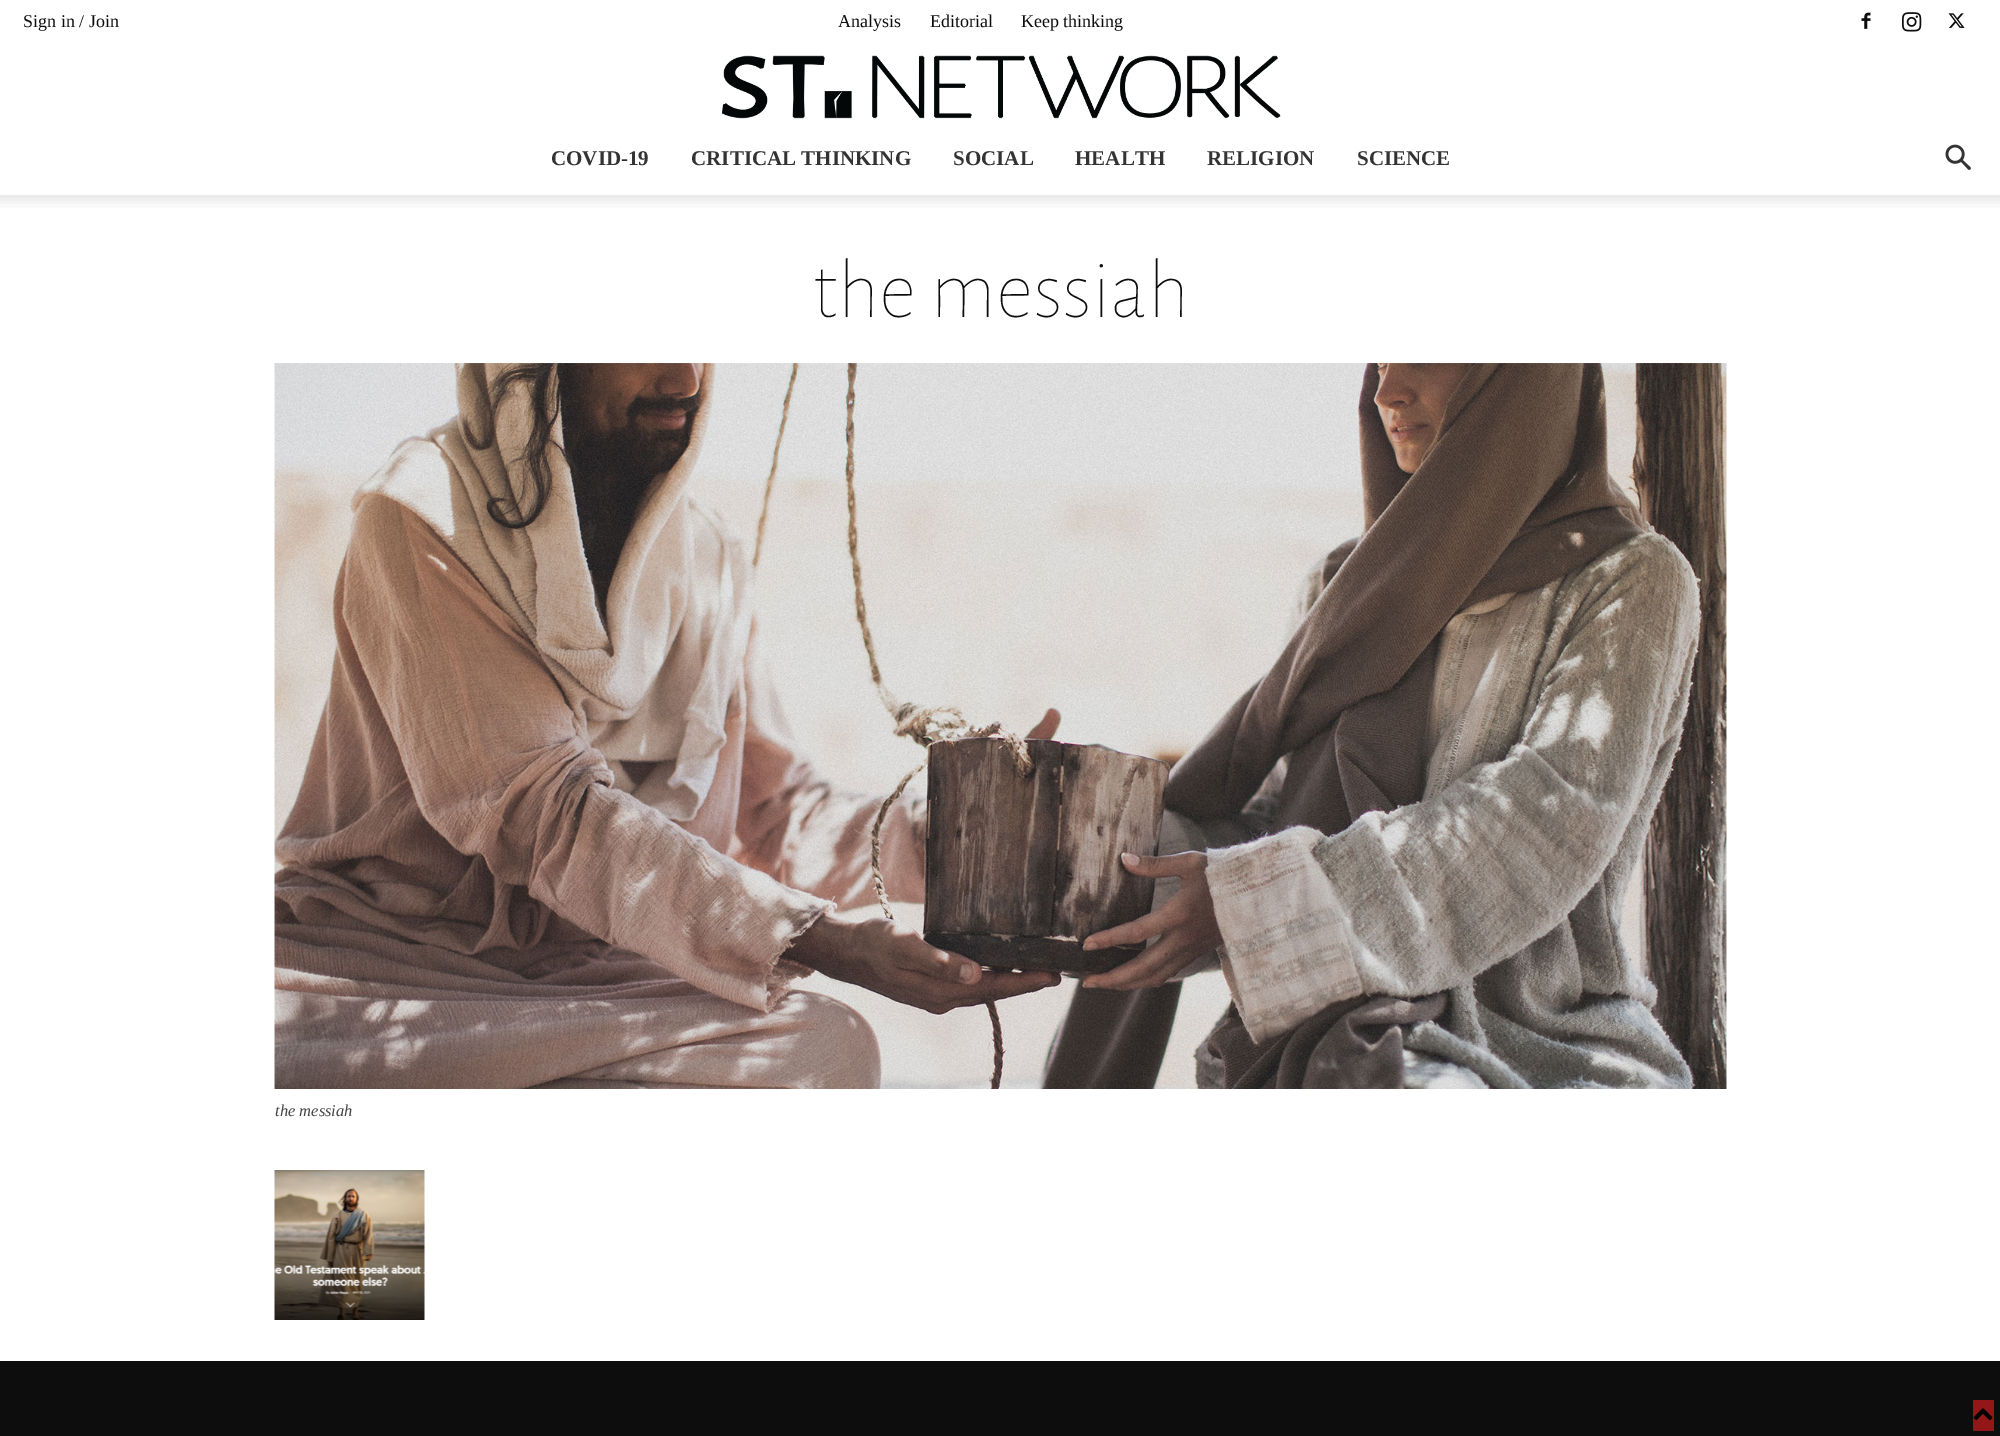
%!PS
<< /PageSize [2000 1436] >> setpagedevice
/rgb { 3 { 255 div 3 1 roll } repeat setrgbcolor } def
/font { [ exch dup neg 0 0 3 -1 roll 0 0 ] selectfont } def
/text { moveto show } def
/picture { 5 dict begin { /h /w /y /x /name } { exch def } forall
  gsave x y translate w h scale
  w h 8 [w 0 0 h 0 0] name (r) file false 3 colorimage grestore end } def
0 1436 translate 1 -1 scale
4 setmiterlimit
255 255 255 rgb
0 0 2000 1436 rectfill
(img_01.rgb) 1861 12 10 17 picture
(img_02.rgb) 1902 12 20 20 picture
(img_03.rgb) 1948 13 17 15 picture
(img_04.rgb) 721 55 560 64 picture
(img_05.rgb) 1945 144 26 26 picture
(img_06.rgb) 0 195 2000 13 picture
(img_07.rgb) 274 363 1453 726 picture
(img_08.rgb) 274 1170 151 150 picture
13 13 13 rgb
0 1361 2000 75 rectfill
147 22 25 rgb
1973 1400 21 31 rectfill
(img_09.rgb) 1973 1408 20 13 picture
/LiberationSerif-Regular 18 font
13 13 13 rgb
(Sign in / Join) 23 27 text
(Analysis) 838 27 text
(Editorial) 930 27 text
(Keep thinking) 1021 27 text
/LiberationSerif-Bold 21 font
51 51 51 rgb
(COVID-19) 551 165 text
(CRITICAL THINKING) 691 165 text
(SOCIAL) 953 165 text
(HEALTH) 1075 165 text
(RELIGION) 1207 165 text
(SCIENCE) 1357 165 text
/AlegreyaSans-Thin 84 font
13 13 13 rgb
812 317 moveto -0.5 0 (the messiah) ashow
/LiberationSerif-Italic 16.5 font
68 68 68 rgb
(the messiah) 275 1116 text
showpage
